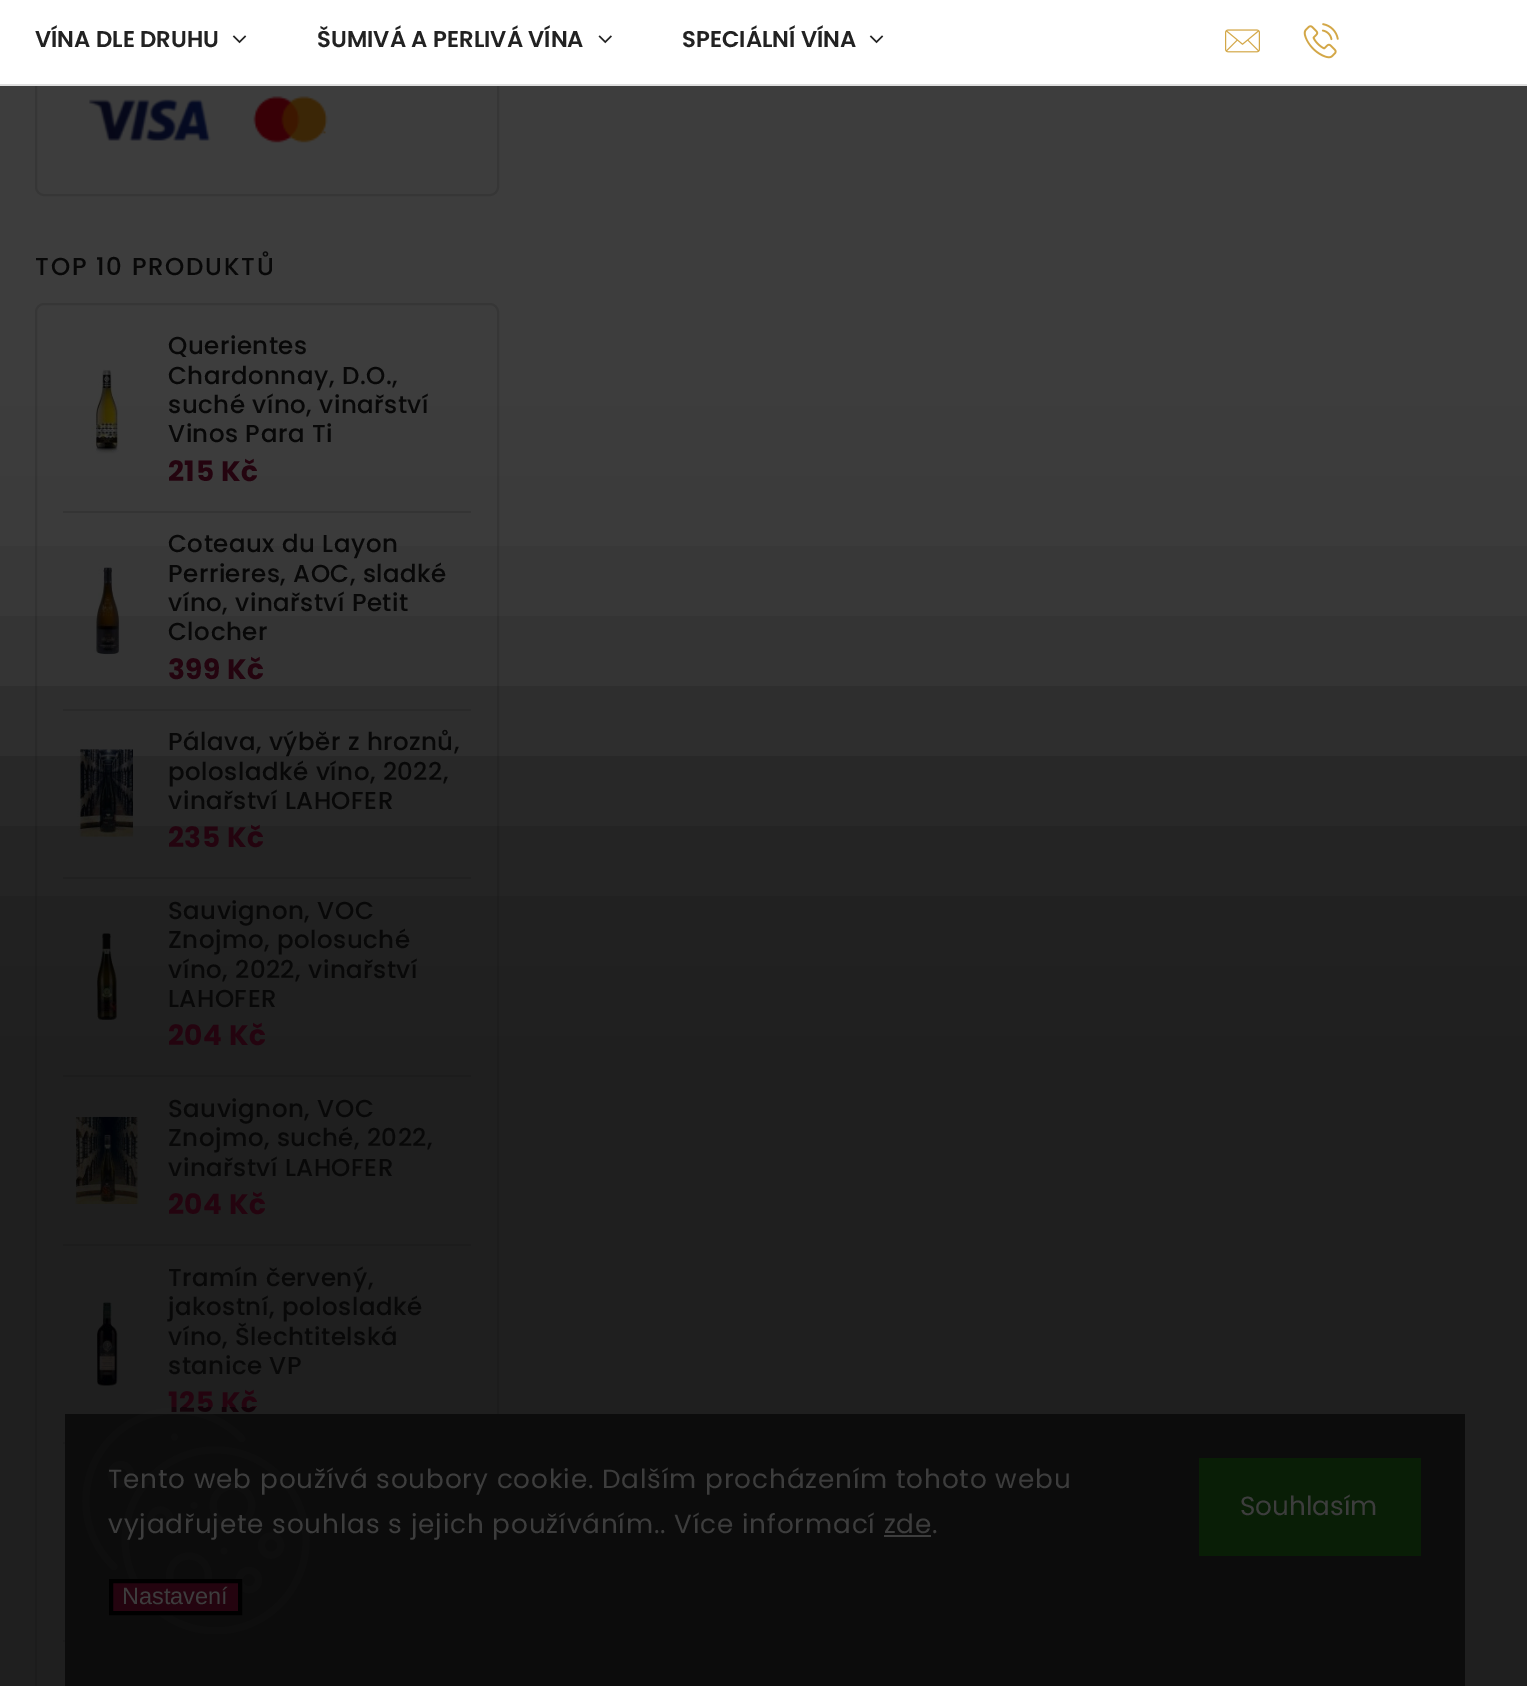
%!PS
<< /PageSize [1527 1686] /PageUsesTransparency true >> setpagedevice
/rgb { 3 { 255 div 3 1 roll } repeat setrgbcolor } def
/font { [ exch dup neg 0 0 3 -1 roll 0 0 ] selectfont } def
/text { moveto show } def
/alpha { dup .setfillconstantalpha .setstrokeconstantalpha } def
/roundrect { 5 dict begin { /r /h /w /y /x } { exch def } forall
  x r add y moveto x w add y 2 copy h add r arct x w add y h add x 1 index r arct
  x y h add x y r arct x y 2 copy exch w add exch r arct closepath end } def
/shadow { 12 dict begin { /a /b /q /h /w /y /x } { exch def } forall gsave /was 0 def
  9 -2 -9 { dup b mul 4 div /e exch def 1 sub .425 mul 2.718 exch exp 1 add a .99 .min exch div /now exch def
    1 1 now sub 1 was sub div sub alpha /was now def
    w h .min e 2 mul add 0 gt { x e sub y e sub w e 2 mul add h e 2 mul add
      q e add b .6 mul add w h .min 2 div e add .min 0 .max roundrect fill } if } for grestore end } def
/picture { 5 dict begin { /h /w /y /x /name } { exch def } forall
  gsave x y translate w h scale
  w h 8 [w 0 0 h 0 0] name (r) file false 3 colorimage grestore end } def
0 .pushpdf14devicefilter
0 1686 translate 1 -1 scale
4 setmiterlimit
61 61 61 rgb
0 0 1527 1686 rectfill
54 54 54 rgb
2 setlinewidth
36 54 462 141 8 roundrect stroke
255 255 255 rgb
0 0 1527 84 rectfill
223 223 223 rgb
0 84 1527 2 rectfill
(img_01.rgb) 232 35 15 9 picture
(img_02.rgb) 598 35 14 9 picture
(img_01.rgb) 869 35 15 9 picture
(img_03.rgb) 1225 29 35 24 picture
(img_04.rgb) 1303 23 36 36 picture
(img_05.rgb) 89 96 239 47 picture
54 54 54 rgb
36 304 462 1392 8 roundrect stroke
63 511 408 2 rectfill
(img_06.rgb) 91 369 29 85 picture
63 709 408 2 rectfill
(img_07.rgb) 94 567 26 88 picture
63 877 408 2 rectfill
(img_08.rgb) 77 749 57 88 picture
63 1075 408 2 rectfill
(img_09.rgb) 93 933 26 88 picture
63 1244 408 2 rectfill
(img_10.rgb) 70 1116 70 89 picture
63 1442 2 2 rectfill
(img_11.rgb) 96 1301 23 87 picture
63 1640 2 2 rectfill
0 0 0 rgb
-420 721 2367 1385 0 140 0.5 shadow
12 12 12 rgb
65 1414 1400 272 rectfill
61 61 61 rgb
884 1535 47 2 rectfill
9 30 6 rgb
1199 1458 222 98 rectfill
/Poppins-SemiBold 22.75 font
34 34 34 rgb
(VÍNA DLE DRUHU) 35 47 text
(ŠUMIVÁ A PERLIVÁ VÍNA) 317 47 text
(SPECIÁLNÍ VÍNA) 682 47 text
/Poppins-Medium 24.5 font
8 8 8 rgb
35 275 moveto 1.75 0 (TOP 10 PRODUKTŮ) ashow
168 354 moveto 0.5 0 (Querientes) ashow
168 384 moveto 0.5 0 (Chardonnay, D.O.,) ashow
168 413 moveto 0.5 0 (suché víno, vinařství) ashow
168 442 moveto 0.5 0 (Vinos Para Ti) ashow
/Poppins-Bold 28 font
36 4 15 rgb
168 481 moveto 0.5 0 (215 Kč) ashow
/Poppins-Medium 24.5 font
8 8 8 rgb
168 552 moveto 0.5 0 (Coteaux du Layon) ashow
168 582 moveto 0.5 0 (Perrieres, AOC, sladké) ashow
168 611 moveto 0.5 0 (víno, vinařství Petit) ashow
168 640 moveto 0.5 0 (Clocher) ashow
/Poppins-Bold 28 font
36 4 15 rgb
168 679 moveto 0.5 0 (399 Kč) ashow
/Poppins-Medium 24.5 font
8 8 8 rgb
168 750 moveto 0.5 0 (Pálava, výběr z hroznů,) ashow
168 780 moveto 0.5 0 (polosladké víno, 2022,) ashow
168 809 moveto 0.5 0 (vinařství LAHOFER) ashow
/Poppins-Bold 28 font
36 4 15 rgb
168 847 moveto 0.5 0 (235 Kč) ashow
/Poppins-Medium 24.5 font
8 8 8 rgb
168 919 moveto 0.5 0 (Sauvignon, VOC) ashow
168 948 moveto 0.5 0 (Znojmo, polosuché) ashow
168 978 moveto 0.5 0 (víno, 2022, vinařství) ashow
168 1007 moveto 0.5 0 (LAHOFER) ashow
/Poppins-Bold 28 font
36 4 15 rgb
168 1045 moveto 0.5 0 (204 Kč) ashow
/Poppins-Medium 24.5 font
8 8 8 rgb
168 1117 moveto 0.5 0 (Sauvignon, VOC) ashow
168 1146 moveto 0.5 0 (Znojmo, suché, 2022,) ashow
168 1176 moveto 0.5 0 (vinařství LAHOFER) ashow
/Poppins-Bold 28 font
36 4 15 rgb
168 1214 moveto 0.5 0 (204 Kč) ashow
/Poppins-Medium 24.5 font
8 8 8 rgb
168 1286 moveto 0.5 0 (Tramín červený,) ashow
168 1315 moveto 0.5 0 (jakostní, polosladké) ashow
168 1345 moveto 0.5 0 (víno, Šlechtitelská) ashow
168 1374 moveto 0.5 0 (stanice VP) ashow
/Poppins-Bold 28 font
36 4 15 rgb
168 1412 moveto 0.5 0 (125 Kč) ashow
(img_12.rgb) 82 1407 228 227 picture
/Poppins-Regular 26.25 font
61 61 61 rgb
108 1488 moveto 0.88 0 (Tento web používá soubory cookie. Dalším procházením tohoto webu) ashow
108 1533 moveto 0.88 0 (vyjadřujete souhlas s jejich používáním.. Více informací zde.) ashow
36 4 15 rgb
111 1581 moveto 129 0 rlineto 0 32 rlineto -129 0 rlineto closepath gsave fill grestore
0 0 0 rgb
4 setlinewidth
stroke
/LiberationSans-Regular 23.5 font
61 61 61 rgb
(Nastavení) 122 1604 text
/Poppins-Regular 26.25 font
(Souhlasím) 1240 1515 text
.poppdf14devicefilter showpage
